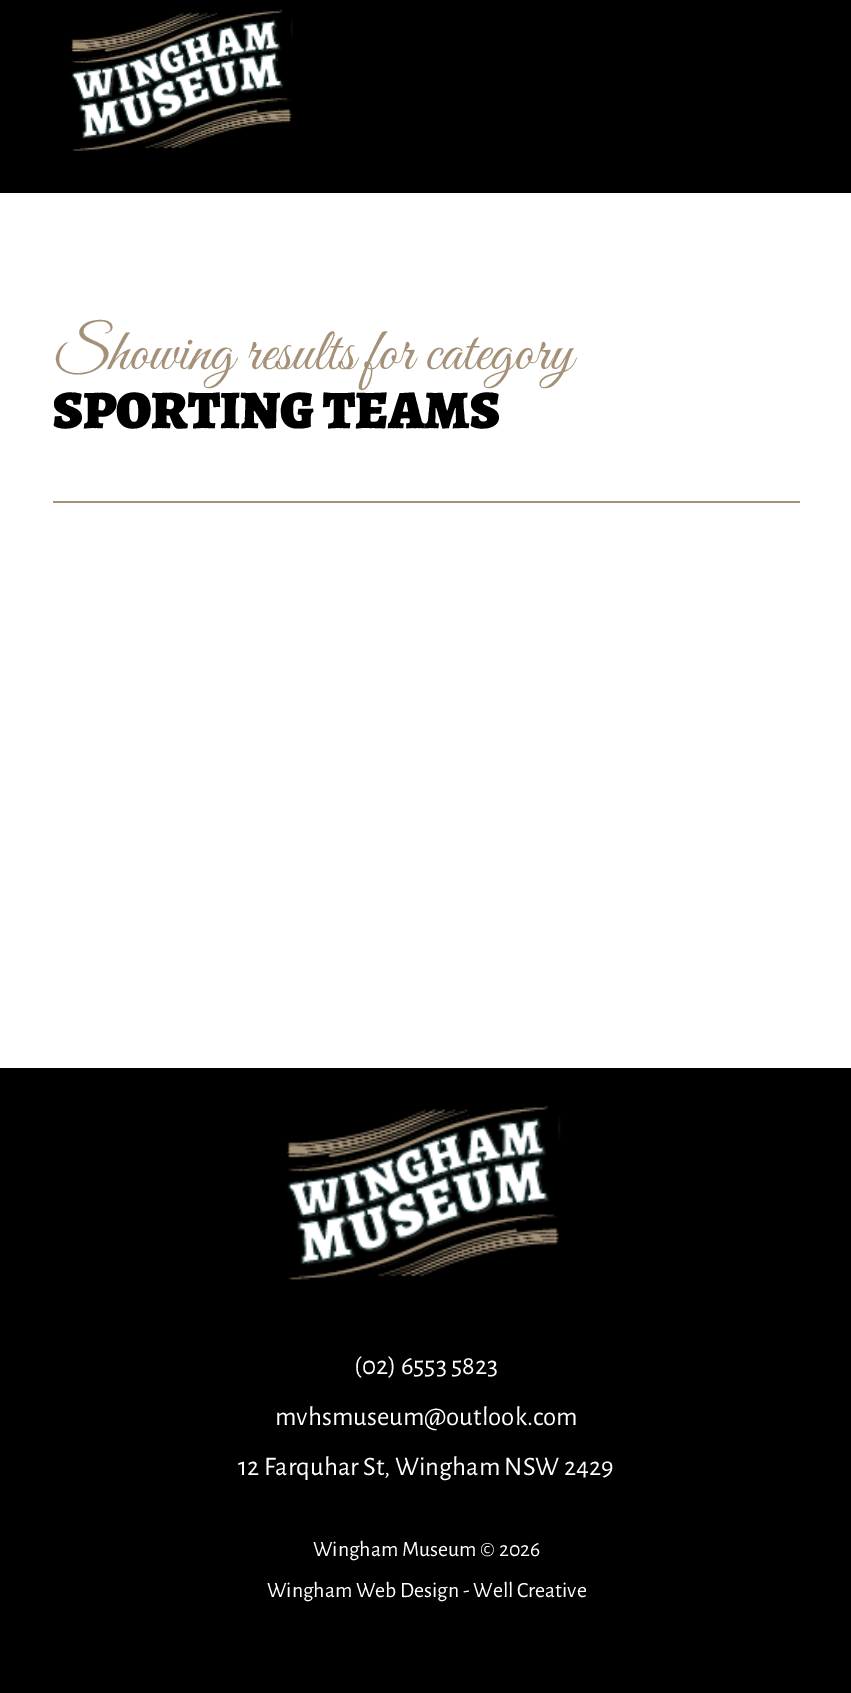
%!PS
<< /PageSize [851 1693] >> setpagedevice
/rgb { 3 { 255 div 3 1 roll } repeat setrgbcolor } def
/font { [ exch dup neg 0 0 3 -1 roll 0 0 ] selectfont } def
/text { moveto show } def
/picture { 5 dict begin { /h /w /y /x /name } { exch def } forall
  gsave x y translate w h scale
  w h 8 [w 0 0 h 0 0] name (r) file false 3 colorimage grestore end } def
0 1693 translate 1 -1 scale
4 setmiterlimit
0 0 0 rgb
0 0 851 1693 rectfill
(img_01.rgb) 70 9 223 142 picture
255 255 255 rgb
0 193 851 875 rectfill
165 145 119 rgb
53 501 747 2 rectfill
(img_02.rgb) 286 1105 275 175 picture
/GreatVibes-Regular 60.25 font
53 369 moveto 1 0 32 (Showing results for category) widthshow
/Alegreya-Black 54.25 font
0 0 0 rgb
(SPORTING TEAMS) 53 428 text
/AlegreyaSans-Regular 26.8 font
255 255 255 rgb
(\(02\) 6553 5823) 354 1374 text
(mvhsmuseum@outlook.com) 275 1425 text
(12 Farquhar St, Wingham NSW 2429) 238 1475 text
/AlegreyaSans-Regular 21.75 font
(Wingham Museum © 2026) 313 1556 text
(Wingham Web Design - Well Creative) 267 1597 text
showpage
